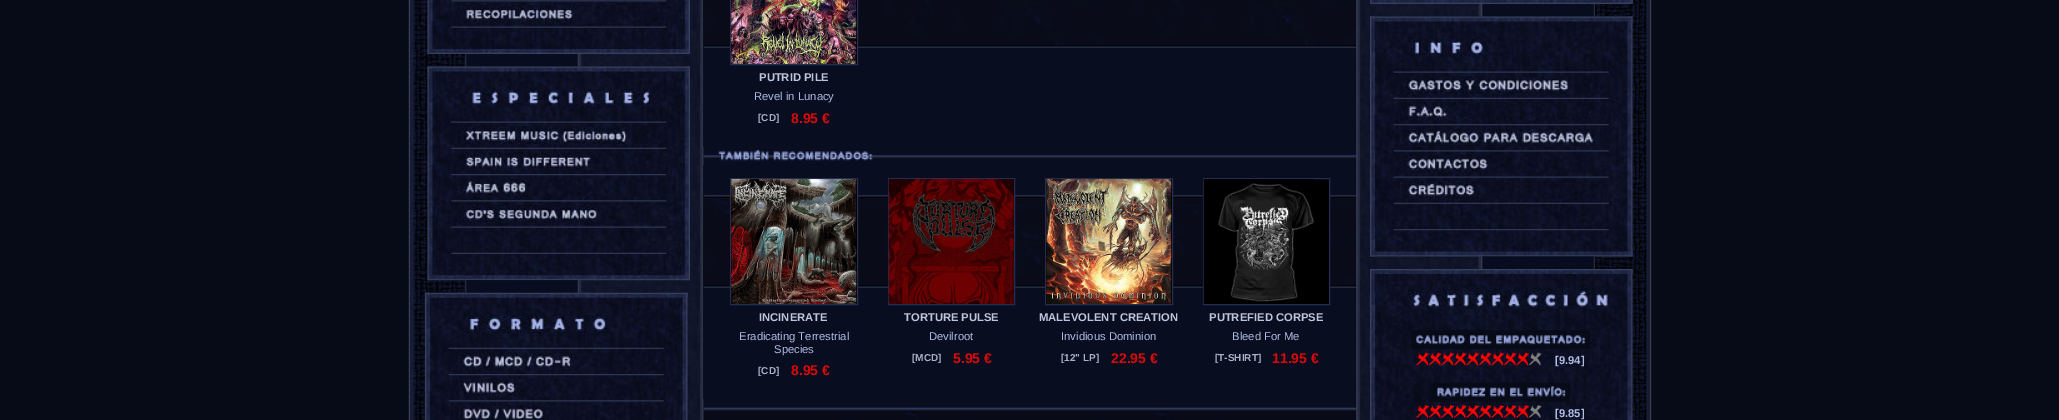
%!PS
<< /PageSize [2059 420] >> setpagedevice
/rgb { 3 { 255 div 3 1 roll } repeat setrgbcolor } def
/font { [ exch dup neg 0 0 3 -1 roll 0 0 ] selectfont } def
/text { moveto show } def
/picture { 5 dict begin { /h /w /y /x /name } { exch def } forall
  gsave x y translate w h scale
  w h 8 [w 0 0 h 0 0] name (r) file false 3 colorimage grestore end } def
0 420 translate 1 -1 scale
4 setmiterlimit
7 10 23 rgb
0 0 2059 420 rectfill
(img_01.rgb) 408 0 296 420 picture
(img_02.rgb) 427 0 263 54 picture
(img_03.rgb) 451 0 216 2 picture
(img_04.rgb) 458 5 202 18 picture
(img_05.rgb) 451 26 216 2 picture
(img_06.rgb) 427 49 263 5 picture
(img_07.rgb) 465 54 113 13 picture
(img_08.rgb) 427 66 263 215 picture
(img_09.rgb) 427 66 263 6 picture
(img_10.rgb) 468 89 185 18 picture
(img_11.rgb) 451 121 216 2 picture
(img_12.rgb) 457 126 203 18 picture
(img_13.rgb) 451 147 216 2 picture
(img_14.rgb) 457 152 203 19 picture
(img_15.rgb) 451 174 216 2 picture
(img_16.rgb) 457 179 203 18 picture
(img_17.rgb) 451 200 216 2 picture
(img_18.rgb) 458 205 202 18 picture
(img_19.rgb) 451 226 216 2 picture
(img_20.rgb) 451 252 216 2 picture
(img_21.rgb) 427 275 263 6 picture
(img_22.rgb) 465 280 113 13 picture
(img_23.rgb) 425 292 263 128 picture
(img_24.rgb) 425 292 263 6 picture
(img_25.rgb) 466 315 142 18 picture
(img_26.rgb) 448 347 216 2 picture
(img_27.rgb) 455 352 203 19 picture
(img_28.rgb) 448 374 216 2 picture
(img_29.rgb) 455 379 202 18 picture
(img_30.rgb) 448 400 216 2 picture
(img_31.rgb) 455 405 203 15 picture
(img_32.rgb) 703 0 654 420 picture
8 13 31 rgb
703 0 653 147 rectfill
(img_33.rgb) 703 0 654 48 picture
0 0 0 rgb
730.5 -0.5 moveto 127 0 rlineto 0 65 rlineto -127 0 rlineto closepath gsave fill grestore
36 44 81 rgb
stroke
(img_34.rgb) 731 0 126 64 picture
(img_35.rgb) 703 147 654 19 picture
(img_36.rgb) 718 150 155 11 picture
8 13 31 rgb
703 165 653 234 rectfill
(img_37.rgb) 703 195 654 93 picture
0 0 0 rgb
730.5 178.5 moveto 127 0 rlineto 0 126 rlineto -127 0 rlineto closepath gsave fill grestore
36 44 81 rgb
stroke
(img_38.rgb) 731 179 126 125 picture
888.5 178.5 126 126 rectstroke
(img_39.rgb) 888 179 126 125 picture
0 0 0 rgb
1045.5 178.5 moveto 127 0 rlineto 0 126 rlineto -127 0 rlineto closepath gsave fill grestore
36 44 81 rgb
stroke
(img_40.rgb) 1046 179 126 125 picture
0 0 0 rgb
1314 179 15 125 rectfill
36 44 81 rgb
1203.5 178.5 126 126 rectstroke
(img_41.rgb) 1203 179 111 125 picture
(img_42.rgb) 703 399 654 13 picture
(img_43.rgb) 703 411 653 9 picture
(img_44.rgb) 1356 0 296 420 picture
(img_45.rgb) 1632 0 1 4 picture
(img_46.rgb) 1370 0 263 4 picture
(img_47.rgb) 1482 4 113 13 picture
(img_48.rgb) 1370 16 263 241 picture
(img_49.rgb) 1370 16 263 6 picture
(img_50.rgb) 1411 39 76 18 picture
(img_51.rgb) 1393 71 216 2 picture
(img_52.rgb) 1400 76 203 18 picture
(img_53.rgb) 1393 97 216 2 picture
(img_54.rgb) 1400 102 203 19 picture
(img_55.rgb) 1393 124 216 2 picture
(img_56.rgb) 1400 129 202 18 picture
(img_57.rgb) 1393 150 216 2 picture
(img_58.rgb) 1400 155 203 18 picture
(img_59.rgb) 1393 176 216 2 picture
(img_60.rgb) 1400 181 203 18 picture
(img_61.rgb) 1393 202 216 2 picture
(img_62.rgb) 1393 229 216 2 picture
(img_63.rgb) 1370 251 263 6 picture
(img_64.rgb) 1482 256 113 13 picture
(img_65.rgb) 1370 269 263 151 picture
(img_66.rgb) 1370 269 263 5 picture
(img_67.rgb) 1410 287 200 22 picture
(img_68.rgb) 1411 330 179 19 picture
(img_69.rgb) 1416 352 126 14 picture
(img_70.rgb) 1431 382 139 20 picture
(img_71.rgb) 1416 405 126 13 picture
/LiberationSans-Bold 11.25 font
191 196 216 rgb
(PUTRID PILE) 759 81 text
/LiberationSans-Regular 11.25 font
177 188 228 rgb
(Revel in Lunacy) 754 100 text
/LiberationSans-Bold 10 font
171 177 196 rgb
([CD]) 758 121 text
/LiberationSans-Bold 14 font
216 10 10 rgb
(8.95 €) 791 123 text
/LiberationSans-Bold 11.25 font
191 196 216 rgb
(INCINERATE) 759 321 text
/LiberationSans-Regular 11.25 font
177 188 228 rgb
(Eradicating Terrestrial) 739 340 text
(Species) 774 353 text
/LiberationSans-Bold 10 font
171 177 196 rgb
([CD]) 758 374 text
/LiberationSans-Bold 14 font
216 10 10 rgb
(8.95 €) 791 375 text
/LiberationSans-Bold 11.25 font
191 196 216 rgb
(TORTURE PULSE) 904 321 text
/LiberationSans-Regular 11.25 font
177 188 228 rgb
(Devilroot) 929 340 text
/LiberationSans-Bold 10 font
171 177 196 rgb
([MCD]) 912 361 text
/LiberationSans-Bold 14 font
216 10 10 rgb
(5.95 €) 953 363 text
/LiberationSans-Bold 11.25 font
191 196 216 rgb
(MALEVOLENT CREATION) 1039 321 text
/LiberationSans-Regular 11.25 font
177 188 228 rgb
(Invidious Dominion) 1061 340 text
/LiberationSans-Bold 10 font
171 177 196 rgb
([12" LP]) 1061 361 text
/LiberationSans-Bold 14 font
216 10 10 rgb
(22.95 €) 1111 363 text
/LiberationSans-Bold 11.25 font
191 196 216 rgb
(PUTREFIED CORPSE) 1209 321 text
/LiberationSans-Regular 11.25 font
177 188 228 rgb
(Bleed For Me) 1232 340 text
/LiberationSans-Bold 10 font
171 177 196 rgb
([T-SHIRT]) 1215 361 text
/LiberationSans-Bold 14 font
216 10 10 rgb
(11.95 €) 1272 363 text
/LiberationSans-Bold 11.25 font
177 188 228 rgb
([9.94]) 1555 364 text
([9.85]) 1555 417 text
showpage
